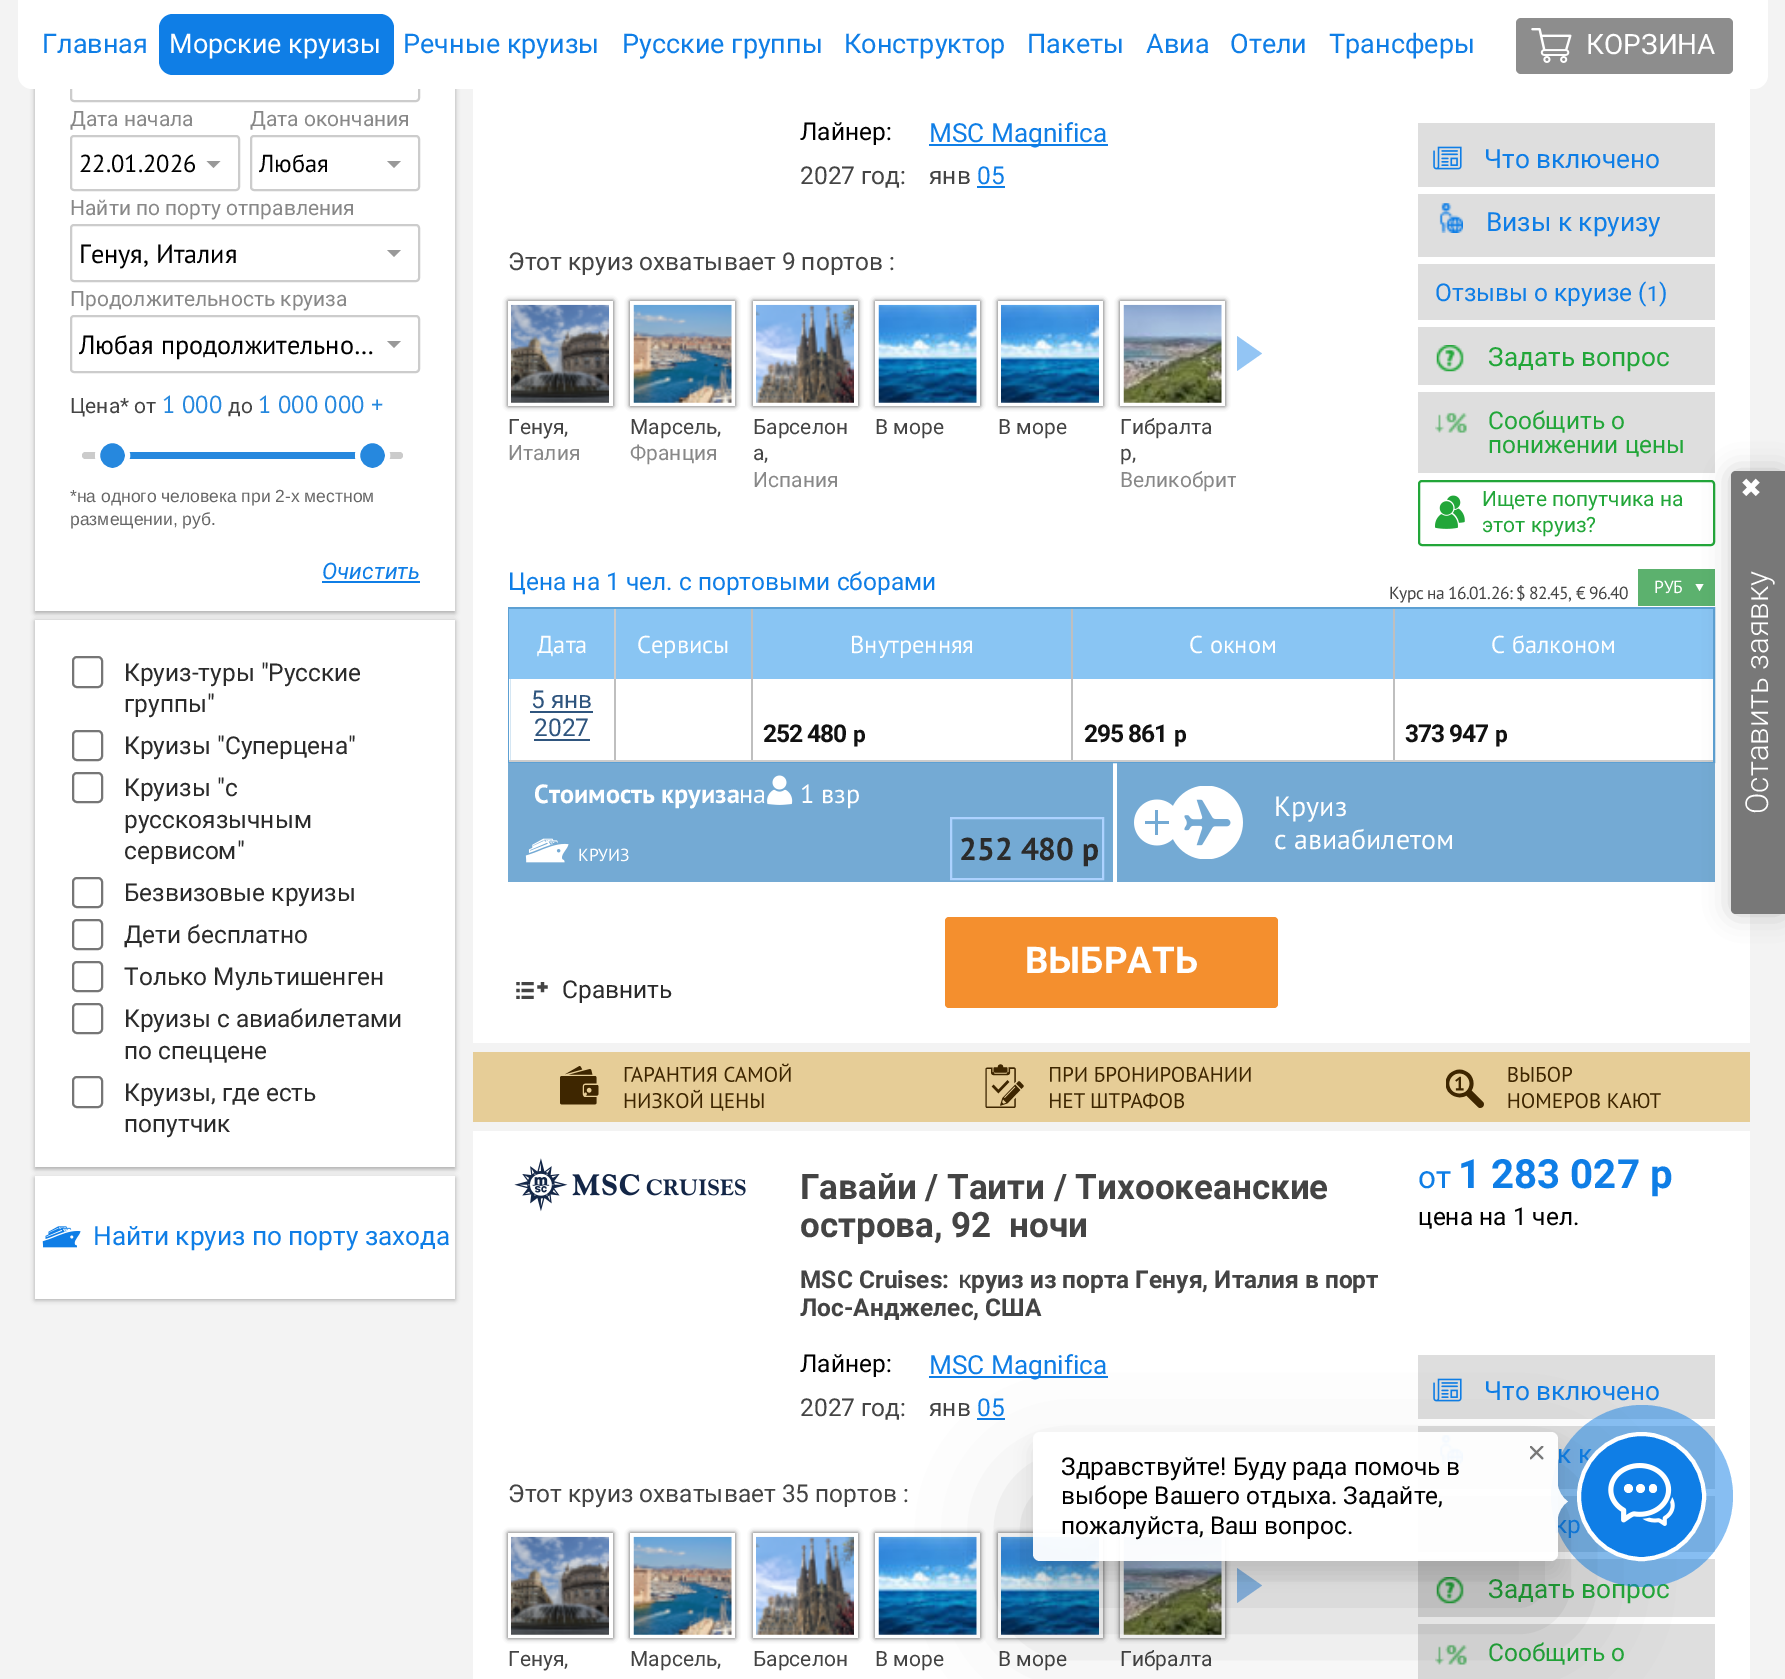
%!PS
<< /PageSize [1785 1679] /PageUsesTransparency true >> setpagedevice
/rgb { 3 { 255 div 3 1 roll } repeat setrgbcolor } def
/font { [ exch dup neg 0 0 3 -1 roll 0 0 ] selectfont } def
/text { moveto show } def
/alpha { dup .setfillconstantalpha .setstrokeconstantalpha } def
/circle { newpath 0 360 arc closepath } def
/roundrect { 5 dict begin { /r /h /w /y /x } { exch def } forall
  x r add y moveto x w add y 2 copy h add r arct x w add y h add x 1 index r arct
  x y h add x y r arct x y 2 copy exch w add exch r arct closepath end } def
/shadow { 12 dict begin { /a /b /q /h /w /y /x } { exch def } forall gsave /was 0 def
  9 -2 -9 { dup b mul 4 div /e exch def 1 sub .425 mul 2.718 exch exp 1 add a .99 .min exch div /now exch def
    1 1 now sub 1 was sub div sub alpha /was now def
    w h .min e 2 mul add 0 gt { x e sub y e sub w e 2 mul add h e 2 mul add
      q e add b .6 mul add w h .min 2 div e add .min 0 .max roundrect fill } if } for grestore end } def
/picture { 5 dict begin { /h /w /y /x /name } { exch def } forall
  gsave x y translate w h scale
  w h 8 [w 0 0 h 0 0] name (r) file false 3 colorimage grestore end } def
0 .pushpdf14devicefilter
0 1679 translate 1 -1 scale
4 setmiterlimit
243 243 243 rgb
0 0 1785 1679 rectfill
0 0 0 rgb
35 -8 420 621 0 2.5 0.3 shadow
255 255 255 rgb
35 89 420 522 rectfill
204 204 204 rgb
2 setlinewidth
71 45 348 56 3 roundrect stroke
255 255 255 rgb
18 0 moveto 1750 0 rlineto 0 75 rlineto 0 7.5 -6.5 14 -14 14 rcurveto -1722 0 rlineto -7.5 0 -14 -6.5 -14 -14 rcurveto closepath fill
15 126 230 rgb
159 14 235 61 14 roundrect fill
141 141 141 rgb
1516 18 217 56 5 roundrect fill
(img_01.rgb) 1531 28 41 35 picture
204 204 204 rgb
71 136 168 54 3 roundrect stroke
153 153 153 rgb
206.5 161 moveto 14 0 rlineto -7 7 rlineto closepath fill
204 204 204 rgb
251 136 168 54 3 roundrect stroke
153 153 153 rgb
387 161 moveto 14 0 rlineto -7 7 rlineto closepath fill
204 204 204 rgb
71 225 348 56 3 roundrect stroke
153 153 153 rgb
387 250 moveto 14 0 rlineto -7 7 rlineto closepath fill
204 204 204 rgb
71 316 348 56 3 roundrect stroke
153 153 153 rgb
387 341 moveto 14 0 rlineto -7 7 rlineto closepath fill
203 203 203 rgb
82 452 321 7 3.5 roundrect fill
38 136 222 rgb
129 452 227 7 rectfill
112.5 455.5 15 circle gsave fill grestore
255 255 255 rgb
5 setlinewidth
stroke
38 136 222 rgb
372.5 455.5 15 circle gsave fill grestore
255 255 255 rgb
stroke
15 126 230 rgb
322 581 98 2 rectfill
0 0 0 rgb
35 621 420 548 0 2.5 0.3 shadow
255 255 255 rgb
35 620 420 547 rectfill
118 118 118 rgb
2 setlinewidth
73 657 29 30 4 roundrect stroke
73 731 29 29 4 roundrect stroke
73 773 29 29 4 roundrect stroke
73 878 29 29 4 roundrect stroke
73 920 29 29 4 roundrect stroke
73 962 29 29 4 roundrect stroke
73 1004 29 29 4 roundrect stroke
73 1077 29 30 4 roundrect stroke
0 0 0 rgb
35 1178 420 122 0 2.5 0.3 shadow
255 255 255 rgb
35 1176 420 123 rectfill
(img_02.rgb) 42 1226 39 22 picture
473 89 1277 954 rectfill
15 126 230 rgb
929 144 179 2 rectfill
977 186 28 2 rectfill
147 197 244 rgb
1237 336 moveto 25 17.5 rlineto -25 17.5 rlineto closepath fill
85 85 85 rgb
508 301 105 105 0 2.5 1 shadow
255 255 255 rgb
508 301 105 105 rectfill
(img_03.rgb) 511 304 98 99 picture
gsave
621 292 moveto 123 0 rlineto 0 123 rlineto -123 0 rlineto closepath 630 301 moveto 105 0 rlineto 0 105 rlineto -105 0 rlineto closepath eoclip newpath
85 85 85 rgb
630 301 105 105 0 2.5 1 shadow
grestore
(img_04.rgb) 633 304 99 99 picture
85 85 85 rgb
753 301 105 105 0 2.5 1 shadow
255 255 255 rgb
753 301 105 105 rectfill
(img_05.rgb) 756 304 98 99 picture
gsave
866 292 moveto 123 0 rlineto 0 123 rlineto -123 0 rlineto closepath 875 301 moveto 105 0 rlineto 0 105 rlineto -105 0 rlineto closepath eoclip newpath
85 85 85 rgb
875 301 105 105 0 2.5 1 shadow
grestore
(img_06.rgb) 878 304 99 99 picture
85 85 85 rgb
998 301 105 105 0 2.5 1 shadow
255 255 255 rgb
998 301 105 105 rectfill
(img_07.rgb) 1001 304 98 99 picture
gsave
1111 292 moveto 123 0 rlineto 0 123 rlineto -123 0 rlineto closepath 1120 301 moveto 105 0 rlineto 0 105 rlineto -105 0 rlineto closepath eoclip newpath
85 85 85 rgb
1120 301 105 105 0 2.5 1 shadow
grestore
(img_08.rgb) 1123 304 99 99 picture
222 222 222 rgb
1418 123 297 134 rectfill
255 255 255 rgb
1418 187 297 7 rectfill
(img_09.rgb) 1433 146 29 24 picture
(img_10.rgb) 1439 203 24 30 picture
222 222 222 rgb
1418 264 297 56 rectfill
1418 327 297 58 rectfill
(img_11.rgb) 1436 345 28 27 picture
1418 392 297 81 rectfill
(img_12.rgb) 1435 412 32 21 picture
34 166 57 rgb
1419 481 295 64 3 roundrect stroke
(img_13.rgb) 1435 495 30 34 picture
92 177 110 rgb
1638 569 77 37 rectfill
255 255 255 rgb
1699.5 591 moveto -4 -7 rlineto 8 0 rlineto closepath fill
93 160 211 rgb
509 608 1205 154 rectstroke
137 197 243 rgb
509 609 1204 70 rectfill
204 204 204 rgb
614 609 2 70 rectfill
191 191 191 rgb
751 609 2 151 rectfill
1071 609 2 151 rectfill
1393 609 2 151 rectfill
255 255 255 rgb
509 679 1 81 rectfill
204 204 204 rgb
509 760 1204 2 rectfill
47 85 126 rgb
530 711 63 2 rectfill
534 739 56 2 rectfill
191 191 191 rgb
614 679 2 81 rectfill
116 170 212 rgb
508 763 605 119 rectfill
(img_14.rgb) 767 775 26 30 picture
(img_15.rgb) 525 838 44 25 picture
173 210 255 rgb
951 818 152 61 rectstroke
116 170 212 rgb
1117 763 598 119 rectfill
(img_16.rgb) 1134 786 109 73 picture
244 143 46 rgb
945 917 333 91 4 roundrect fill
(img_17.rgb) 516 982 32 17 picture
230 205 151 rgb
473 1052 1277 70 rectfill
(img_18.rgb) 560 1063 231 48 picture
(img_19.rgb) 985 1064 266 45 picture
(img_20.rgb) 1446 1066 215 43 picture
255 255 255 rgb
473 1131 1277 548 rectfill
(img_21.rgb) 514 1158 232 54 picture
15 126 230 rgb
929 1376 179 2 rectfill
977 1418 28 2 rectfill
147 197 244 rgb
1237 1568 moveto 25 17.5 rlineto -25 17.5 rlineto closepath fill
85 85 85 rgb
508 1533 105 105 0 2.5 1 shadow
255 255 255 rgb
508 1533 105 105 rectfill
(img_03.rgb) 511 1536 98 99 picture
gsave
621 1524 moveto 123 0 rlineto 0 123 rlineto -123 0 rlineto closepath 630 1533 moveto 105 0 rlineto 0 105 rlineto -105 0 rlineto closepath eoclip newpath
85 85 85 rgb
630 1533 105 105 0 2.5 1 shadow
grestore
(img_04.rgb) 633 1536 99 99 picture
85 85 85 rgb
753 1533 105 105 0 2.5 1 shadow
255 255 255 rgb
753 1533 105 105 rectfill
(img_05.rgb) 756 1536 98 99 picture
gsave
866 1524 moveto 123 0 rlineto 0 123 rlineto -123 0 rlineto closepath 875 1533 moveto 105 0 rlineto 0 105 rlineto -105 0 rlineto closepath eoclip newpath
85 85 85 rgb
875 1533 105 105 0 2.5 1 shadow
grestore
(img_06.rgb) 878 1536 99 99 picture
85 85 85 rgb
998 1533 105 105 0 2.5 1 shadow
255 255 255 rgb
998 1533 105 105 rectfill
(img_07.rgb) 1001 1536 98 99 picture
gsave
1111 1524 moveto 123 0 rlineto 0 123 rlineto -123 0 rlineto closepath 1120 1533 moveto 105 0 rlineto 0 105 rlineto -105 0 rlineto closepath eoclip newpath
85 85 85 rgb
1120 1533 105 105 0 2.5 1 shadow
grestore
(img_08.rgb) 1123 1536 99 99 picture
222 222 222 rgb
1418 1355 297 134 rectfill
255 255 255 rgb
1418 1419 297 7 rectfill
(img_09.rgb) 1433 1378 29 24 picture
(img_10.rgb) 1439 1435 24 30 picture
222 222 222 rgb
1418 1496 297 56 rectfill
1418 1559 297 58 rectfill
(img_22.rgb) 1436 1577 28 27 picture
1418 1624 297 55 rectfill
(img_23.rgb) 1435 1644 32 21 picture
0 0 0 rgb
1731 471 54 443 5 13 0.2 shadow
120 120 120 rgb
1736 471 moveto 49 0 rlineto 0 443 rlineto -49 0 rlineto -3 0 -5 -2 -5 -5 rcurveto 0 -433 rlineto 0 -3 2 -5 5 -5 rcurveto closepath fill
/Roboto-Regular 27 font
15 126 230 rgb
(Главная) 42 53 text
255 255 255 rgb
(Морские круизы) 169 53 text
15 126 230 rgb
(Речные круизы) 403 53 text
(Русские группы) 622 53 text
(Конструктор) 844 53 text
(Пакеты) 1027 53 text
(Авиа) 1146 53 text
(Отели) 1230 53 text
(Трансферы) 1329 53 text
/Roboto-Regular 28 font
255 255 255 rgb
(КОРЗИНА) 1586 54 text
/Roboto-Regular 21 font
136 136 136 rgb
(Дата начала) 70 126 text
/PTSans-Regular 24.5 font
0 0 0 rgb
(22.01.2026) 79 172 text
/Roboto-Regular 21 font
136 136 136 rgb
(Дата окончания) 250 126 text
/PTSans-Regular 24.5 font
0 0 0 rgb
(Любая) 259 172 text
/Roboto-Regular 21 font
136 136 136 rgb
(Найти по порту отправления) 70 215 text
/PTSans-Regular 26.25 font
0 0 0 rgb
(Генуя, Италия) 79 263 text
/Roboto-Regular 21 font
136 136 136 rgb
(Продолжительность круиза) 70 306 text
/PTSans-Regular 26.25 font
0 0 0 rgb
(Любая продолжительно…) 79 354 text
/Roboto-Regular 21 font
68 68 68 rgb
(Цена* от) 70 413 text
/PTSans-Regular 24.5 font
38 136 222 rgb
(1 000) 162 413 text
/Roboto-Regular 21 font
68 68 68 rgb
(до) 228 413 text
/PTSans-Regular 24.5 font
38 136 222 rgb
(1 000 000 +) 258 413 text
/LiberationSans-Regular 17.5 font
102 102 102 rgb
(*на одного человека при 2-х местном) 70 502 text
(размещении, руб.) 70 525 text
/Roboto-Italic 22.75 font
15 126 230 rgb
(Очистить) 322 579 text
/Roboto-Regular 24.5 font
43 43 43 rgb
(Круиз-туры "Русские) 124 681 text
(группы") 124 712 text
(Круизы "Суперцена") 124 754 text
(Круизы "c) 124 796 text
(русскоязычным) 124 828 text
(сервисом") 124 859 text
(Безвизовые круизы) 124 901 text
(Дети бесплатно) 124 943 text
(Только Мультишенген) 124 985 text
(Круизы с авиабилетами) 124 1027 text
(по спеццене) 124 1059 text
(Круизы, где есть) 124 1101 text
(попутчик) 124 1132 text
/Roboto-Regular 26.25 font
15 126 230 rgb
(Найти круиз по порту захода) 93 1245 text
/Roboto-Regular 24.5 font
0 0 0 rgb
(Лайнер:) 800 140 text
/Roboto-Regular 26.25 font
15 126 230 rgb
(MSC Magnifica) 929 142 text
/Roboto-Regular 24.5 font
68 68 68 rgb
(2027 год:) 800 184 text
(янв) 929 184 text
15 126 230 rgb
(05) 977 184 text
68 68 68 rgb
(Этот круиз охватывает 9 портов :) 508 270 text
/Roboto-Regular 21 font
(Генуя,) 508 434 text
136 136 136 rgb
(Италия) 508 460 text
68 68 68 rgb
(Марсель,) 630 434 text
136 136 136 rgb
(Франция) 630 460 text
68 68 68 rgb
(Барселон) 753 434 text
(а,) 753 460 text
136 136 136 rgb
(Испания) 753 487 text
68 68 68 rgb
(В море) 875 434 text
(В море) 998 434 text
(Гибралта) 1120 434 text
(р,) 1120 460 text
gsave
1120 415 116 79 rectclip
136 136 136 rgb
(Великобрит) 1120 487 text
grestore
/Roboto-Regular 26.25 font
15 126 230 rgb
(Что включено) 1484 168 text
(Визы к круизу) 1486 231 text
/Roboto-Regular 24.5 font
(Отзывы о круизе \() 1435 301 text
/Roboto-Regular 21 font
(1) 1647 301 text
/Roboto-Regular 24.5 font
(\)) 1659 301 text
/Roboto-Regular 26.25 font
34 166 57 rgb
(Задать вопрос) 1488 366 text
/Roboto-Regular 24.5 font
(Сообщить о) 1488 429 text
(понижении цены) 1488 453 text
/Roboto-Regular 21 font
(Ищете попутчика на) 1482 506 text
(этот круиз?) 1482 532 text
/Roboto-Regular 24.5 font
15 126 230 rgb
(Цена на 1 чел. с портовыми сборами) 508 590 text
/PTSans-Regular 17.5 font
68 68 68 rgb
1389 599 moveto -0.55 0 (Курс на 16.01.26: $ 82.45, € 96.40) ashow
255 255 255 rgb
(РУБ) 1654 593 text
/PTSans-Regular 24.5 font
(Дата) 537 653 text
(Сервисы) 637 653 text
(Внутренняя) 850 653 text
(С окном) 1189 653 text
(С балконом) 1491 653 text
/Roboto-Regular 24.5 font
47 85 126 rgb
(5 янв) 531 708 text
(2027) 534 736 text
/Roboto-Bold 24.5 font
17 17 17 rgb
763 742 moveto -1 0 (252 480) ashow
/Roboto-Bold 22.75 font
(р) 853 742 text
/Roboto-Bold 24.5 font
1084 742 moveto -1 0 (295 861) ashow
/Roboto-Bold 22.75 font
(р) 1174 742 text
/Roboto-Bold 24.5 font
1405 742 moveto -1 0 (373 947) ashow
/Roboto-Bold 22.75 font
(р) 1495 742 text
/PTSans-Bold 26.25 font
255 255 255 rgb
(Стоимость круиза) 534 803 text
/PTSans-Regular 26.25 font
(на) 739 803 text
(1 взр) 800 803 text
/PTSans-Regular 17.5 font
(КРУИЗ) 578 861 text
/PTSans-Bold 31.5 font
43 43 43 rgb
(252 480 р) 959 860 text
/PTSans-Regular 28 font
255 255 255 rgb
(Круиз) 1274 816 text
(с авиабилетом) 1274 849 text
/Roboto-Bold 36.75 font
(ВЫБРАТЬ) 1025 973 text
/Roboto-Regular 24.5 font
43 43 43 rgb
(Сравнить) 562 998 text
/Roboto-Bold 35 font
68 68 68 rgb
(Гавайи / Таити / Тихоокеанские) 800 1199 text
(острова, 92) 800 1237 text
(ночи) 1009 1237 text
/Roboto-Bold 24.5 font
(MSC Cruises:) 800 1288 text
/NotoSans-Medium 24.5 font
(к) 958 1288 text
/Roboto-Bold 24.5 font
(руиз из порта Генуя, Италия в порт) 971 1288 text
(Лос-Анджелес, США) 800 1316 text
/Roboto-Regular 31.5 font
15 126 230 rgb
(от) 1418 1188 text
/Roboto-Bold 40.25 font
(1 283 027 р) 1458 1188 text
/Roboto-Regular 24.5 font
0 0 0 rgb
(цена на 1 чел.) 1418 1225 text
(Лайнер:) 800 1372 text
/Roboto-Regular 26.25 font
15 126 230 rgb
(MSC Magnifica) 929 1374 text
/Roboto-Regular 24.5 font
68 68 68 rgb
(2027 год:) 800 1416 text
(янв) 929 1416 text
15 126 230 rgb
(05) 977 1416 text
68 68 68 rgb
(Этот круиз охватывает 35 портов :) 508 1502 text
/Roboto-Regular 21 font
(Генуя,) 508 1666 text
(Марсель,) 630 1666 text
(Барселон) 753 1666 text
(В море) 875 1666 text
(В море) 998 1666 text
(Гибралта) 1120 1666 text
/Roboto-Regular 26.25 font
15 126 230 rgb
(Что включено) 1484 1400 text
(к к) 1557 1463 text
/Roboto-Regular 24.5 font
(кр) 1554 1533 text
/Roboto-Regular 26.25 font
34 166 57 rgb
(Задать вопрос) 1488 1598 text
/Roboto-Regular 24.5 font
(Сообщить о) 1488 1661 text
/DejaVuSans-Regular 26.25 font
255 255 255 rgb
(✖) 1740 497 text
/Roboto-Light 31.5 font
gsave 1768 814 translate -90 rotate 0 0 moveto (Оставить заявку) show grestore
0.5 alpha
15 126 230 rgb
1642 1496 91 circle fill
gsave
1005 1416 moveto 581 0 rlineto 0 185 rlineto -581 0 rlineto closepath 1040 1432 moveto 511 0 rlineto 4 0 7 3 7 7 rcurveto 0 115 rlineto 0 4 -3 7 -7 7 rcurveto -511 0 rlineto -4 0 -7 -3 -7 -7 rcurveto 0 -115 rlineto 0 -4 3 -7 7 -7 rcurveto closepath eoclip newpath
1 alpha
0 0 0 rgb
1033 1444 525 129 7 9 0.1 shadow
grestore
gsave
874 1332 moveto 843 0 rlineto 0 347 rlineto -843 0 rlineto closepath 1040 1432 moveto 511 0 rlineto 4 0 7 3 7 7 rcurveto 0 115 rlineto 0 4 -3 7 -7 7 rcurveto -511 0 rlineto -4 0 -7 -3 -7 -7 rcurveto 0 -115 rlineto 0 -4 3 -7 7 -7 rcurveto closepath eoclip newpath
1 alpha
0 0 0 rgb
1033 1491 525 130 7 52.5 0.2 shadow
grestore
0.95 alpha
255 255 255 rgb
1033 1432 525 129 7 roundrect fill
1 alpha
(img_24.rgb) 1530 1446 14 14 picture
gsave
1558 1484 10 35 rectclip
0.95 alpha
1557.5 1484 moveto 0 35 rlineto 1 -7 4.5 -13.5 10.5 -17.5 rcurveto -6 -4 -9.5 -10.5 -10.5 -17.5 rcurveto closepath fill
grestore
/Roboto-Regular 24.5 font
0 0 0 rgb
(пожалуйста, Ваш вопрос.) 1061 1534 text
(выборе Вашего отдыха. Задайте,) 1061 1504 text
(Здравствуйте! Буду рада помочь в) 1061 1475 text
15 126 230 rgb
1641.5 1496.5 62.5 circle gsave fill grestore
255 255 255 rgb
4 setlinewidth
stroke
(img_25.rgb) 1608 1463 67 63 picture
1628.5 1488.5 4.5 circle fill
1640.5 1488.5 4.5 circle fill
1649 1484 8 9 4 roundrect fill
.poppdf14devicefilter showpage
